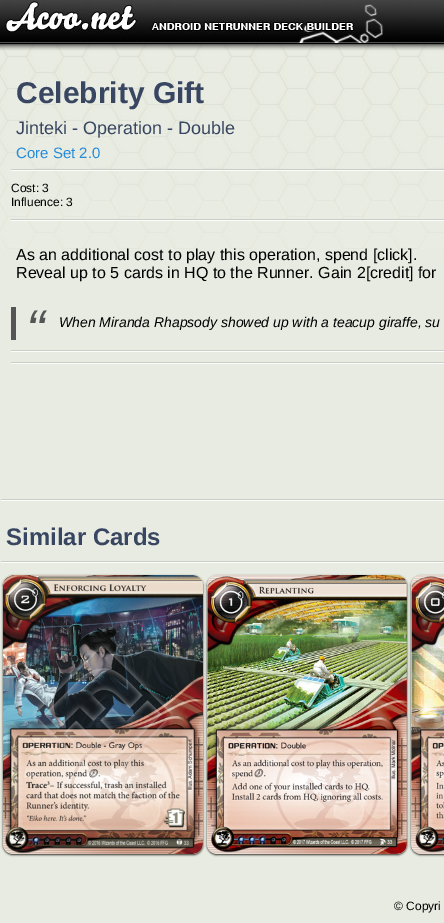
%!PS
<< /PageSize [444 923] /PageUsesTransparency true >> setpagedevice
/rgb { 3 { 255 div 3 1 roll } repeat setrgbcolor } def
/font { [ exch dup neg 0 0 3 -1 roll 0 0 ] selectfont } def
/text { moveto show } def
/alpha { dup .setfillconstantalpha .setstrokeconstantalpha } def
/roundrect { 5 dict begin { /r /h /w /y /x } { exch def } forall
  x r add y moveto x w add y 2 copy h add r arct x w add y h add x 1 index r arct
  x y h add x y r arct x y 2 copy exch w add exch r arct closepath end } def
/shadow { 12 dict begin { /a /b /q /h /w /y /x } { exch def } forall gsave /was 0 def
  9 -2 -9 { dup b mul 4 div /e exch def 1 sub .425 mul 2.718 exch exp 1 add a .99 .min exch div /now exch def
    1 1 now sub 1 was sub div sub alpha /was now def
    w h .min e 2 mul add 0 gt { x e sub y e sub w e 2 mul add h e 2 mul add
      q e add b .6 mul add w h .min 2 div e add .min 0 .max roundrect fill } if } for grestore end } def
/picture { 5 dict begin { /h /w /y /x /name } { exch def } forall
  gsave x y translate w h scale
  w h 8 [w 0 0 h 0 0] name (r) file false 3 colorimage grestore end } def
0 .pushpdf14devicefilter
0 923 translate 1 -1 scale
4 setmiterlimit
232 235 225 rgb
0 0 444 923 rectfill
(img_01.rgb) 0 0 444 249 picture
(img_02.rgb) 5 1 384 42 picture
202 205 196 rgb
11 169 433 1 rectfill
252 252 252 rgb
11 170 433 1 rectfill
202 205 196 rgb
11 219 433 1 rectfill
252 252 252 rgb
11 220 433 1 rectfill
85 85 85 rgb
11 307 5 33 rectfill
202 205 196 rgb
11 350 433 1 rectfill
252 252 252 rgb
11 351 433 1 rectfill
202 205 196 rgb
11 362 433 1 rectfill
252 252 252 rgb
11 363 433 1 rectfill
202 205 196 rgb
1 499 443 1 rectfill
252 252 252 rgb
1 500 443 1 rectfill
202 205 196 rgb
1 561 443 1 rectfill
252 252 252 rgb
1 562 443 1 rectfill
0 0 0 rgb
3 576 200 279 10 1 0.8 shadow
(img_03.rgb) 3 575 200 279 picture
207 576 200 279 10 1 0.8 shadow
(img_04.rgb) 207 575 200 279 picture
411 576 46 279 10 1 0.8 shadow
(img_05.rgb) 411 575 33 279 picture
/LiberationSans-Bold 30 font
56 70 97 rgb
(Celebrity Gift) 16 103 text
/LiberationSans-Regular 18 font
(Jinteki - Operation - Double) 16 134 text
/LiberationSans-Regular 15 font
38 139 216 rgb
(Core Set 2.0) 16 158 text
/LiberationSans-Regular 12 font
0 0 0 rgb
(Cost: 3) 11 192 text
(Influence: 3) 11 206 text
/LiberationSans-Regular 16 font
(As an additional cost to play this operation, spend [click].) 16 260 text
(Reveal up to 5 cards in HQ to the Runner. Gain 2[credit] for) 16 278 text
/LiberationSans-Italic 56 font
85 85 85 rgb
(“) 26 349 text
/LiberationSans-Italic 14 font
0 0 0 rgb
(When Miranda Rhapsody showed up with a teacup giraffe, su) 59 327 text
/LiberationSans-Bold 24 font
56 70 97 rgb
(Similar Cards) 6 545 text
/LiberationSans-Regular 12 font
0 0 0 rgb
(© Copyri) 394 910 text
.poppdf14devicefilter showpage
